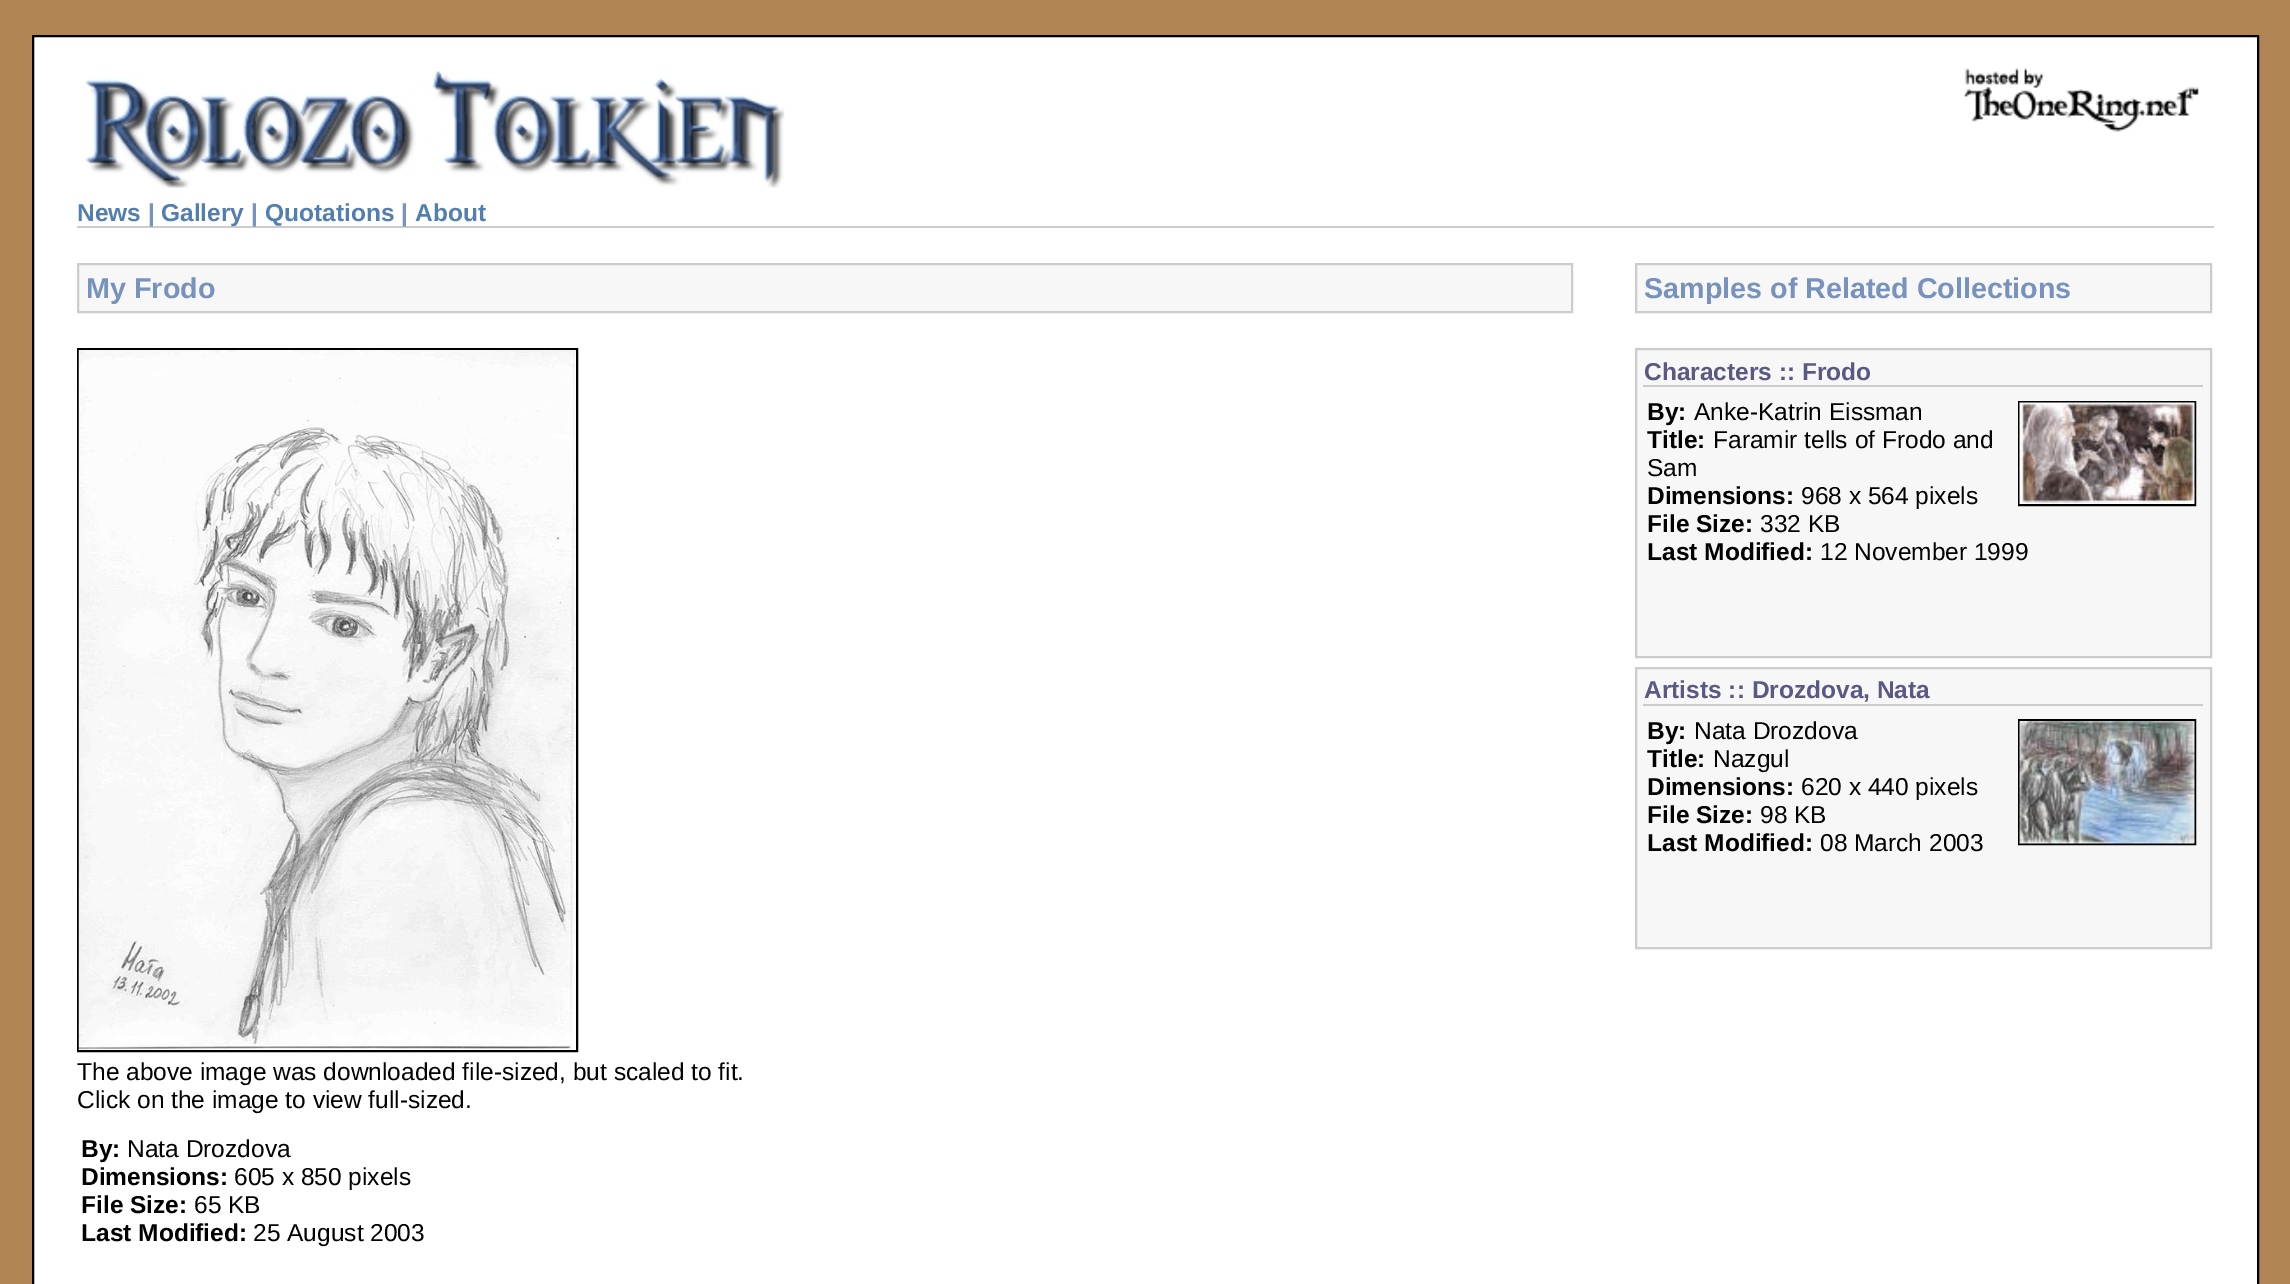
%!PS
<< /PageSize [2290 1284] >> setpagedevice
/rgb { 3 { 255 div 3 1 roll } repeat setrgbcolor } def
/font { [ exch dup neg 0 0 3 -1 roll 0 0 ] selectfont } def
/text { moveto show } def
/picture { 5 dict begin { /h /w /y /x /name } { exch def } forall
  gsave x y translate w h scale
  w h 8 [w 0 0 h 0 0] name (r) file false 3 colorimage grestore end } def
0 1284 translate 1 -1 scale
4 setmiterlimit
176 133 83 rgb
0 0 2290 1284 rectfill
255 255 255 rgb
33 36 moveto 2225 0 rlineto 0 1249 rlineto -2225 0 rlineto closepath gsave fill grestore
0 0 0 rgb
2 setlinewidth
stroke
(img_01.rgb) 85 70 700 118 picture
(img_02.rgb) 1963 68 236 64 picture
204 204 204 rgb
77 226 2137 2 rectfill
247 247 247 rgb
78 264 moveto 1494 0 rlineto 0 48 rlineto -1494 0 rlineto closepath gsave fill grestore
204 204 204 rgb
stroke
0 0 0 rgb
78 349 499 702 rectstroke
(img_03.rgb) 78 350 498 700 picture
247 247 247 rgb
1636 264 moveto 575 0 rlineto 0 48 rlineto -575 0 rlineto closepath gsave fill grestore
204 204 204 rgb
stroke
247 247 247 rgb
1636 349 moveto 575 0 rlineto 0 308 rlineto -575 0 rlineto closepath gsave fill grestore
204 204 204 rgb
stroke
1643 385 560 2 rectfill
0 0 0 rgb
2019 402 176 103 rectstroke
(img_04.rgb) 2019 402 176 102 picture
247 247 247 rgb
1636 668 moveto 575 0 rlineto 0 280 rlineto -575 0 rlineto closepath gsave fill grestore
204 204 204 rgb
stroke
1643 704 560 2 rectfill
0 0 0 rgb
2019 720 176 124 rectstroke
(img_05.rgb) 2019 721 176 123 picture
/LiberationSans-Bold 24.5 font
83 126 176 rgb
(News) 77 221 text
119 146 188 rgb
(|) 148 221 text
83 126 176 rgb
(Gallery) 161 221 text
119 146 188 rgb
(|) 251 221 text
83 126 176 rgb
(Quotations) 265 221 text
119 146 188 rgb
(|) 401 221 text
83 126 176 rgb
(About) 415 221 text
/LiberationSans-Bold 28.7 font
119 146 188 rgb
(My Frodo) 86 298 text
/LiberationSans-Regular 24.5 font
0 0 0 rgb
(The above image was downloaded file-sized, but scaled to fit.) 77 1080 text
(Click on the image to view full-sized.) 77 1108 text
/LiberationSans-Bold 24.5 font
(By:) 81 1157 text
/LiberationSans-Regular 24.5 font
(Nata Drozdova) 127 1157 text
/LiberationSans-Bold 24.5 font
(Dimensions:) 81 1185 text
/LiberationSans-Regular 24.5 font
(605 x 850 pixels) 234 1185 text
/LiberationSans-Bold 24.5 font
(File Size:) 81 1213 text
/LiberationSans-Regular 24.5 font
(65 KB) 194 1213 text
/LiberationSans-Bold 24.5 font
(Last Modified:) 81 1241 text
/LiberationSans-Regular 24.5 font
(25 August 2003) 253 1241 text
/LiberationSans-Bold 28.7 font
119 146 188 rgb
(Samples of Related Collections) 1644 298 text
/LiberationSans-Bold 24.5 font
89 89 131 rgb
(Characters :: Frodo) 1644 380 text
0 0 0 rgb
(By:) 1647 420 text
/LiberationSans-Regular 24.5 font
(Anke-Katrin Eissman) 1694 420 text
/LiberationSans-Bold 24.5 font
(Title:) 1647 448 text
/LiberationSans-Regular 24.5 font
(Faramir tells of Frodo and) 1713 448 text
(Sam) 1647 476 text
/LiberationSans-Bold 24.5 font
(Dimensions:) 1647 504 text
/LiberationSans-Regular 24.5 font
(968 x 564 pixels) 1801 504 text
/LiberationSans-Bold 24.5 font
(File Size:) 1647 532 text
/LiberationSans-Regular 24.5 font
(332 KB) 1760 532 text
/LiberationSans-Bold 24.5 font
(Last Modified:) 1647 560 text
/LiberationSans-Regular 24.5 font
(12 November 1999) 1820 560 text
/LiberationSans-Bold 24.5 font
89 89 131 rgb
(Artists :: Drozdova, Nata) 1644 698 text
0 0 0 rgb
(By:) 1647 739 text
/LiberationSans-Regular 24.5 font
(Nata Drozdova) 1694 739 text
/LiberationSans-Bold 24.5 font
(Title:) 1647 767 text
/LiberationSans-Regular 24.5 font
(Nazgul) 1713 767 text
/LiberationSans-Bold 24.5 font
(Dimensions:) 1647 795 text
/LiberationSans-Regular 24.5 font
(620 x 440 pixels) 1801 795 text
/LiberationSans-Bold 24.5 font
(File Size:) 1647 823 text
/LiberationSans-Regular 24.5 font
(98 KB) 1760 823 text
/LiberationSans-Bold 24.5 font
(Last Modified:) 1647 851 text
/LiberationSans-Regular 24.5 font
(08 March 2003) 1820 851 text
showpage
